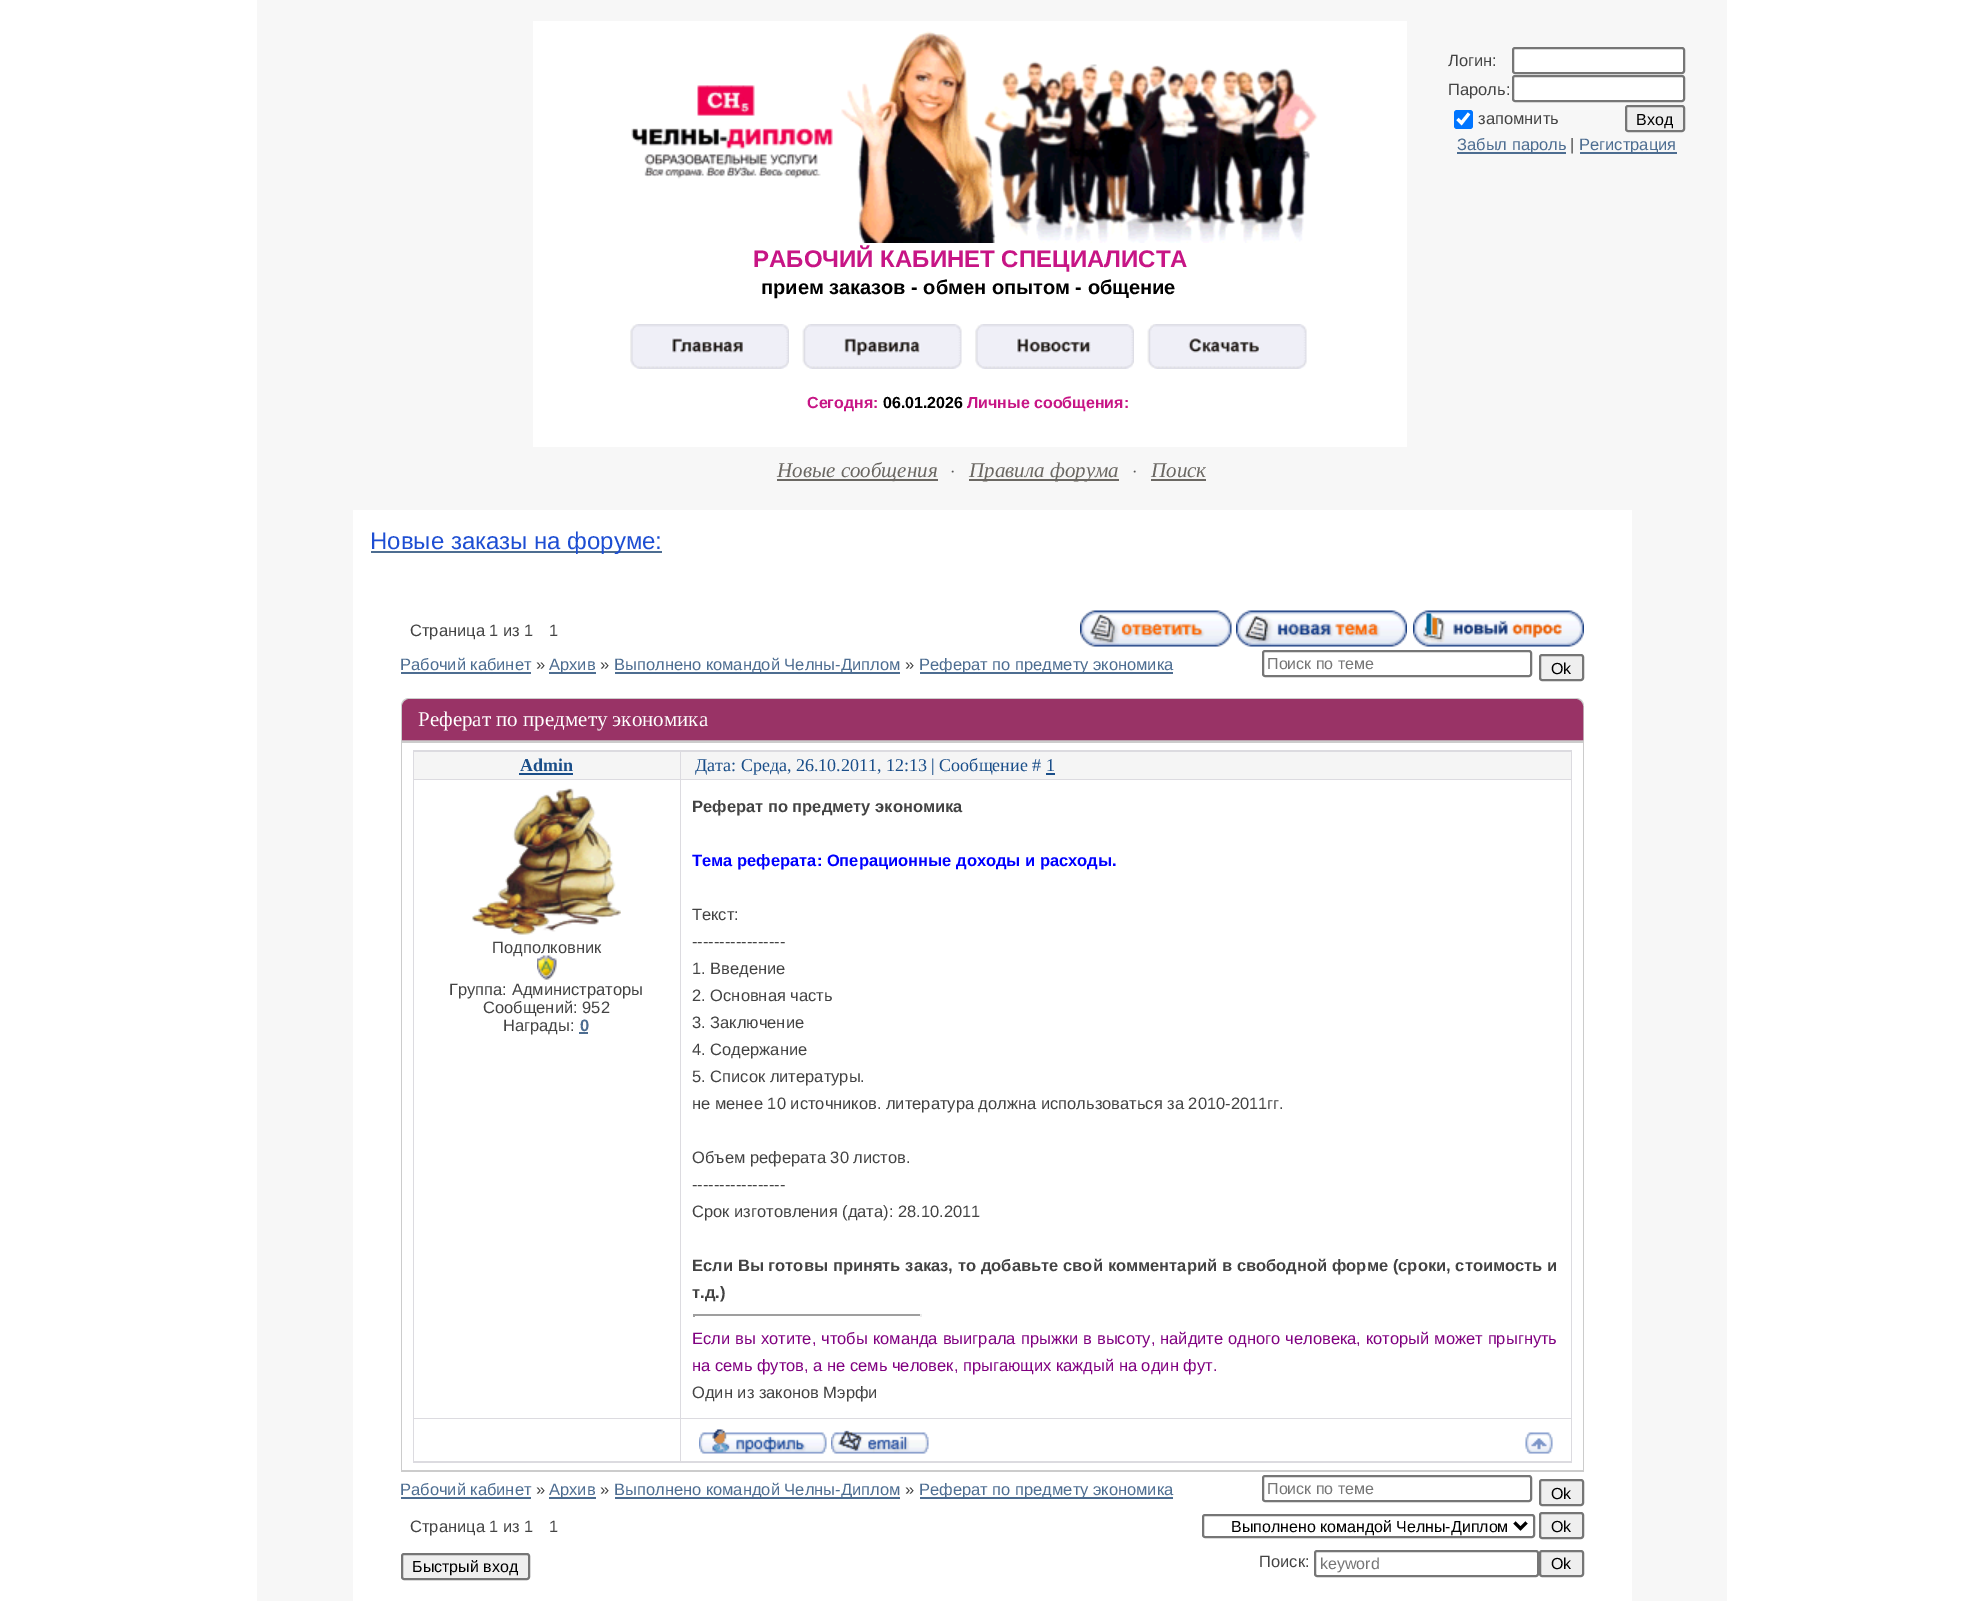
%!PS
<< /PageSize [1982 1601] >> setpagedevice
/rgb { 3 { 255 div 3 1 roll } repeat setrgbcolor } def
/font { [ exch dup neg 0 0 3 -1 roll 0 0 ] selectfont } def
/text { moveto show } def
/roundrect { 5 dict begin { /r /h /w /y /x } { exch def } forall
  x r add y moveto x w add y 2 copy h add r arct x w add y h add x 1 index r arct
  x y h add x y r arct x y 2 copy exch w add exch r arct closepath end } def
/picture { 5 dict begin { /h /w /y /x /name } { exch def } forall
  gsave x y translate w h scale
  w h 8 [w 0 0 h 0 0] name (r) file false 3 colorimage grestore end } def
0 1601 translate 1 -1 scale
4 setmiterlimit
255 255 255 rgb
0 0 1982 1601 rectfill
247 247 247 rgb
257 0 1470 21 rectfill
257 21 276 426 rectfill
(img_01.rgb) 631 31 687 212 picture
1407 21 320 426 rectfill
255 255 255 rgb
1513 48 171 25 2 roundrect gsave fill grestore
118 118 118 rgb
2 setlinewidth
stroke
255 255 255 rgb
1513 76 171 25 2 roundrect gsave fill grestore
118 118 118 rgb
stroke
0 117 255 rgb
1454 110 19 19 3 roundrect fill
255 255 255 rgb
3.1 setlinewidth
1457.5 119 moveto 4 4 rlineto 7.5 -9.5 rlineto stroke
239 239 239 rgb
1626 106 58 25 2 roundrect gsave fill grestore
118 118 118 rgb
2 setlinewidth
stroke
77 109 145 rgb
1457 152 109 2 rectfill
1580 152 97 2 rectfill
(img_02.rgb) 630 324 159 45 picture
(img_03.rgb) 802 324 160 45 picture
(img_04.rgb) 975 324 159 45 picture
(img_05.rgb) 1147 324 160 45 picture
247 247 247 rgb
257 447 1470 1154 rectfill
107 104 99 rgb
777 479 161 2 rectfill
969 479 150 2 rectfill
1151 479 55 2 rectfill
255 255 255 rgb
353 510 1279 1091 rectfill
77 109 145 rgb
371 551 291 2 rectfill
(img_06.rgb) 1080 610 152 37 picture
(img_07.rgb) 1236 610 171 37 picture
(img_08.rgb) 1413 610 171 37 picture
401 672 130 2 rectfill
549 672 47 2 rectfill
615 672 285 2 rectfill
920 672 253 2 rectfill
118 118 118 rgb
1263 651 268 25 2 roundrect stroke
239 239 239 rgb
1540 655 43 25 2 roundrect gsave fill grestore
118 118 118 rgb
stroke
204 204 204 rgb
409 698 moveto 1167 0 rlineto 4.5 0 8 3.5 8 8 rcurveto 0 766 rlineto -1183 0 rlineto 0 -766 rlineto 0 -4.5 3.5 -8 8 -8 rcurveto closepath fill
153 51 102 rgb
410 700 moveto 1165 0 rlineto 4 0 7 3 7 7 rcurveto 0 32 rlineto -1179 0 rlineto 0 -32 rlineto 0 -4 3 -7 7 -7 rcurveto closepath gsave fill grestore
stroke
255 255 255 rgb
402 743 1181 727 rectfill
220 219 224 rgb
413 750 1159 713 rectfill
245 245 245 rgb
414 752 266 27 rectfill
26 78 137 rgb
519 773 54 2 rectfill
245 245 245 rgb
681 752 890 27 rectfill
26 78 137 rgb
1046 773 9 2 rectfill
255 255 255 rgb
414 780 266 638 rectfill
(img_09.rgb) 472 788 149 147 picture
77 109 145 rgb
579 1032 9 2 rectfill
255 255 255 rgb
681 780 890 638 rectfill
159 159 159 rgb
693 1314 228 2 rectfill
238 238 238 rgb
920 1314 2 3 rectfill
159 159 159 rgb
693 1314 2 3 rectfill
255 255 255 rgb
414 1419 266 42 rectfill
681 1419 890 42 rectfill
(img_11.rgb) 699 1429 128 25 picture
(img_12.rgb) 831 1430 98 24 picture
(img_13.rgb) 1525 1432 28 22 picture
77 109 145 rgb
401 1497 130 2 rectfill
549 1497 47 2 rectfill
615 1497 285 2 rectfill
920 1497 253 2 rectfill
118 118 118 rgb
1263 1476 268 25 2 roundrect stroke
239 239 239 rgb
1540 1480 43 25 2 roundrect gsave fill grestore
118 118 118 rgb
stroke
1203 1515 331 22 2 roundrect stroke
0 0 0 rgb
3 setlinewidth
1514.5 1522.5 moveto 6 6 rlineto 6 -6 rlineto stroke
239 239 239 rgb
1540 1513 43 25 2 roundrect gsave fill grestore
118 118 118 rgb
2 setlinewidth
stroke
239 239 239 rgb
402 1554 127 25 2 roundrect gsave fill grestore
118 118 118 rgb
stroke
1315 1551 223 25 2 roundrect stroke
239 239 239 rgb
1540 1551 43 25 2 roundrect gsave fill grestore
118 118 118 rgb
stroke
/LiberationSans-Regular 16.5 font
67 67 67 rgb
(Логин:) 1448 66 text
(Пароль:) 1448 95 text
(запомнить) 1478 124 text
/LiberationSans-Regular 16 font
0 0 0 rgb
(Вход) 1636 125 text
/LiberationSans-Regular 16.5 font
77 109 145 rgb
(Забыл пароль) 1457 150 text
67 67 67 rgb
(|) 1570 150 text
77 109 145 rgb
(Регистрация) 1579 150 text
/LiberationSans-Bold 24 font
199 21 133 rgb
(РАБОЧИЙ КАБИНЕТ СПЕЦИАЛИСТА) 753 267 text
/LiberationSans-Bold 20 font
0 0 0 rgb
(прием заказов - обмен опытом - общение) 761 294 text
/LiberationSans-Bold 16 font
199 21 133 rgb
(Сегодня:) 807 408 text
0 0 0 rgb
(06.01.2026) 883 408 text
199 21 133 rgb
(Личные сообщения:) 967 408 text
/LiberationSerif-Italic 21 font
107 104 99 rgb
(Новые сообщения) 777 477 text
/LiberationSerif-Regular 16.5 font
85 85 85 rgb
(·) 950 477 text
/LiberationSerif-Italic 21 font
107 104 99 rgb
(Правила форума) 969 477 text
/LiberationSerif-Regular 16.5 font
85 85 85 rgb
(·) 1132 477 text
/LiberationSerif-Italic 21 font
107 104 99 rgb
(Поиск) 1151 477 text
/LiberationSans-Regular 24 font
29 78 211 rgb
(Новые заказы на форуме:) 370 549 text
/LiberationSans-Regular 16.5 font
67 67 67 rgb
(Страница 1 из 1) 410 636 text
(1) 549 636 text
77 109 145 rgb
(Рабочий кабинет) 400 670 text
67 67 67 rgb
(») 536 670 text
77 109 145 rgb
(Архив) 549 670 text
67 67 67 rgb
(») 600 670 text
77 109 145 rgb
(Выполнено командой Челны-Диплом) 614 670 text
67 67 67 rgb
(») 905 670 text
77 109 145 rgb
(Реферат по предмету экономика) 919 670 text
/LiberationSans-Regular 16 font
117 117 117 rgb
(Поиск по теме) 1267 669 text
0 0 0 rgb
(Ok) 1551 674 text
/LiberationSerif-Regular 21 font
255 255 255 rgb
(Реферат по предмету экономика) 418 726 text
/LiberationSerif-Bold 18 font
26 78 137 rgb
(Admin) 520 771 text
/LiberationSerif-Regular 18 font
(Дата: Среда, 26.10.2011, 12:13 | Сообщение # 1) 695 771 text
/LiberationSans-Regular 16.5 font
67 67 67 rgb
(Подполковник) 492 953 text
(img_10.rgb) 537 955 20 25 picture
(Группа: Администраторы) 449 995 text
(Сообщений: 952) 483 1013 text
(Награды:) 503 1031 text
/LiberationSans-Bold 16.5 font
77 109 145 rgb
(0) 580 1031 text
67 67 67 rgb
(Реферат по предмету экономика) 692 812 text
0 0 255 rgb
(Тема реферата: Операционные доходы и расходы.) 692 866 text
/LiberationSans-Regular 16.5 font
67 67 67 rgb
(Текст:) 692 920 text
(-----------------) 692 947 text
(1. Введение) 692 974 text
(2. Основная часть) 692 1001 text
(3. Заключение) 692 1028 text
(4. Содержание) 692 1055 text
(5. Список литературы.) 692 1082 text
(не менее 10 источников. литература должна использоваться за 2010-2011гг.) 692 1109 text
(Объем реферата 30 листов.) 692 1163 text
(-----------------) 692 1190 text
(Срок изготовления \(дата\): 28.10.2011) 692 1217 text
/LiberationSans-Bold 16.5 font
692 1271 moveto 0.25 0 32 (Если Вы готовы принять заказ, то добавьте свой комментарий в свободной форме \(сроки, стоимость и) widthshow
(т.д.\)) 692 1298 text
/LiberationSans-Regular 16.5 font
128 0 128 rgb
692 1344 moveto 0.4 0 32 (Если вы хотите, чтобы команда выиграла прыжки в высоту, найдите одного человека, который может прыгнуть) widthshow
(на семь футов, а не семь человек, прыгающих каждый на один фут.) 692 1371 text
67 67 67 rgb
(Один из законов Мэрфи) 692 1398 text
77 109 145 rgb
(Рабочий кабинет) 400 1495 text
67 67 67 rgb
(») 536 1495 text
77 109 145 rgb
(Архив) 549 1495 text
67 67 67 rgb
(») 600 1495 text
77 109 145 rgb
(Выполнено командой Челны-Диплом) 614 1495 text
67 67 67 rgb
(») 905 1495 text
77 109 145 rgb
(Реферат по предмету экономика) 919 1495 text
/LiberationSans-Regular 16 font
117 117 117 rgb
(Поиск по теме) 1267 1494 text
0 0 0 rgb
(Ok) 1551 1499 text
/LiberationSans-Regular 16.5 font
67 67 67 rgb
(Страница 1 из 1) 410 1532 text
(1) 549 1532 text
/LiberationSans-Regular 16 font
0 0 0 rgb
(Выполнено командой Челны-Диплом) 1231 1532 text
(Ok) 1551 1532 text
(Быстрый вход) 412 1572 text
/LiberationSans-Regular 16.5 font
67 67 67 rgb
(Поиск:) 1259 1567 text
/LiberationSans-Regular 16 font
117 117 117 rgb
(keyword) 1320 1569 text
0 0 0 rgb
(Ok) 1551 1569 text
showpage
